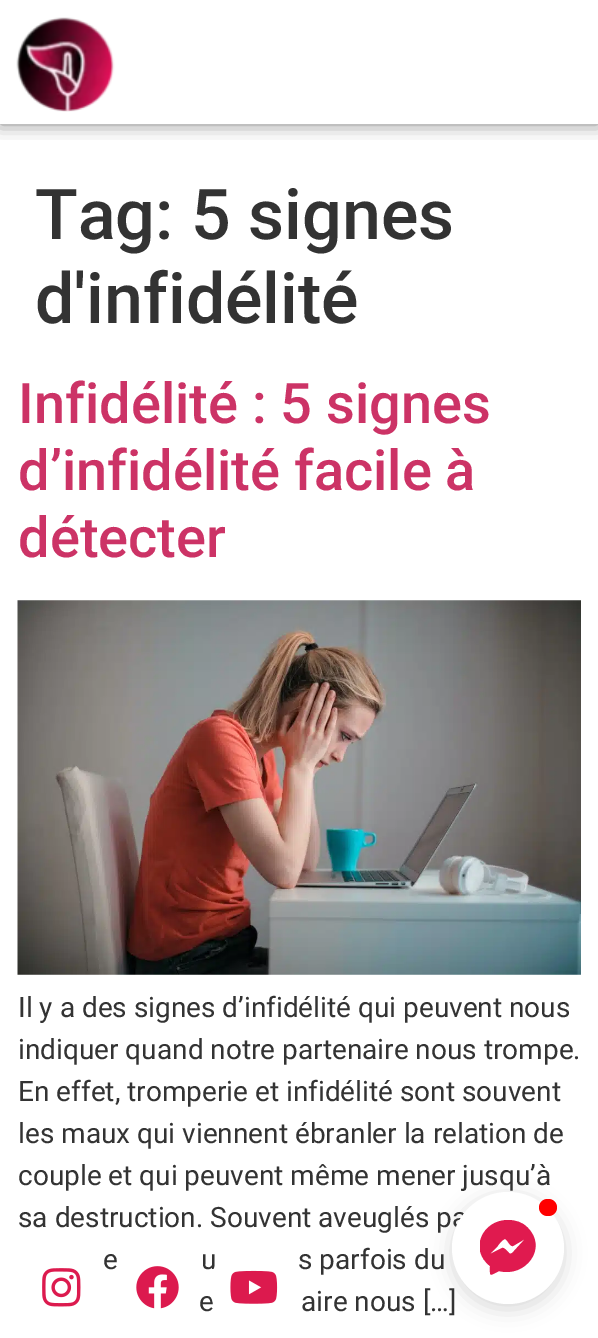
%!PS
<< /PageSize [598 1338] /PageUsesTransparency true >> setpagedevice
/rgb { 3 { 255 div 3 1 roll } repeat setrgbcolor } def
/font { [ exch dup neg 0 0 3 -1 roll 0 0 ] selectfont } def
/text { moveto show } def
/alpha { dup .setfillconstantalpha .setstrokeconstantalpha } def
/circle { newpath 0 360 arc closepath } def
/roundrect { 5 dict begin { /r /h /w /y /x } { exch def } forall
  x r add y moveto x w add y 2 copy h add r arct x w add y h add x 1 index r arct
  x y h add x y r arct x y 2 copy exch w add exch r arct closepath end } def
/shadow { 12 dict begin { /a /b /q /h /w /y /x } { exch def } forall gsave /was 0 def
  9 -2 -9 { dup b mul 4 div /e exch def 1 sub .425 mul 2.718 exch exp 1 add a .99 .min exch div /now exch def
    1 1 now sub 1 was sub div sub alpha /was now def
    w h .min e 2 mul add 0 gt { x e sub y e sub w e 2 mul add h e 2 mul add
      q e add b .6 mul add w h .min 2 div e add .min 0 .max roundrect fill } if } for grestore end } def
/picture { 5 dict begin { /h /w /y /x /name } { exch def } forall
  gsave x y translate w h scale
  w h 8 [w 0 0 h 0 0] name (r) file false 3 colorimage grestore end } def
0 .pushpdf14devicefilter
0 1338 translate 1 -1 scale
4 setmiterlimit
255 255 255 rgb
0 0 598 1338 rectfill
gsave
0 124 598 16 rectclip
0 0 0 rgb
0 0 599 124 0 9 0.5 shadow
grestore
(img_01.rgb) 16 17 99 95 picture
(img_02.rgb) 42 1268 39 39 picture
(img_03.rgb) 136 1266 43 43 picture
(img_05.rgb) 17 600 564 375 picture
0 0 0 rgb
452 1197 112 112 56 10.5 0.15 shadow
/Roboto-Medium 70 font
51 51 51 rgb
(Tag: 5 signes) 35 239 text
(d'infidélité) 35 323 text
/Roboto-Medium 56 font
204 51 102 rgb
(Infidélité : 5 signes) 18 423 text
(d’infidélité facile à) 18 490 text
(détecter) 18 557 text
/Roboto-Regular 28 font
51 51 51 rgb
(Il y a des signes d’infidélité qui peuvent nous) 18 1017 text
(indiquer quand notre partenaire nous trompe.) 18 1059 text
(En effet, tromperie et infidélité sont souvent) 18 1101 text
(les maux qui viennent ébranler la relation de) 18 1143 text
(couple et qui peuvent même mener jusqu’à) 18 1185 text
(sa destruction. Souvent aveuglés pa) 18 1227 text
(e) 103 1269 text
(u) 201 1269 text
(s parfois du) 298 1269 text
(e) 199 1311 text
255 255 255 rgb
210 1243 88 87 43.5 roundrect fill
(img_04.rgb) 230 1270 48 34 picture
51 51 51 rgb
(aire nous […]) 301 1311 text
255 255 255 rgb
508 1248 56 circle fill
255 0 0 rgb
539 1199 18 17 8.5 roundrect fill
gsave
480 1220 56 56 rectclip
224 26 79 rgb
509 1253 moveto -1 -1 -5 -6 -7 -5 rcurveto -12 6 rlineto 7 -7 rlineto 1 -2 6 -8 8 -8 rcurveto 2 0 5 8 8 7 rcurveto 12 -7 rlineto -11 12 rlineto -1 1 -3 4 -5 2 rcurveto closepath 508 1220 moveto -26 0 -39 30 -18 46 rcurveto 0 11 -1 10 9 5 rcurveto 26 7 50 -23 28 -44 rcurveto -5 -5 -12 -7 -19 -7 rcurveto closepath fill
grestore
.poppdf14devicefilter showpage
